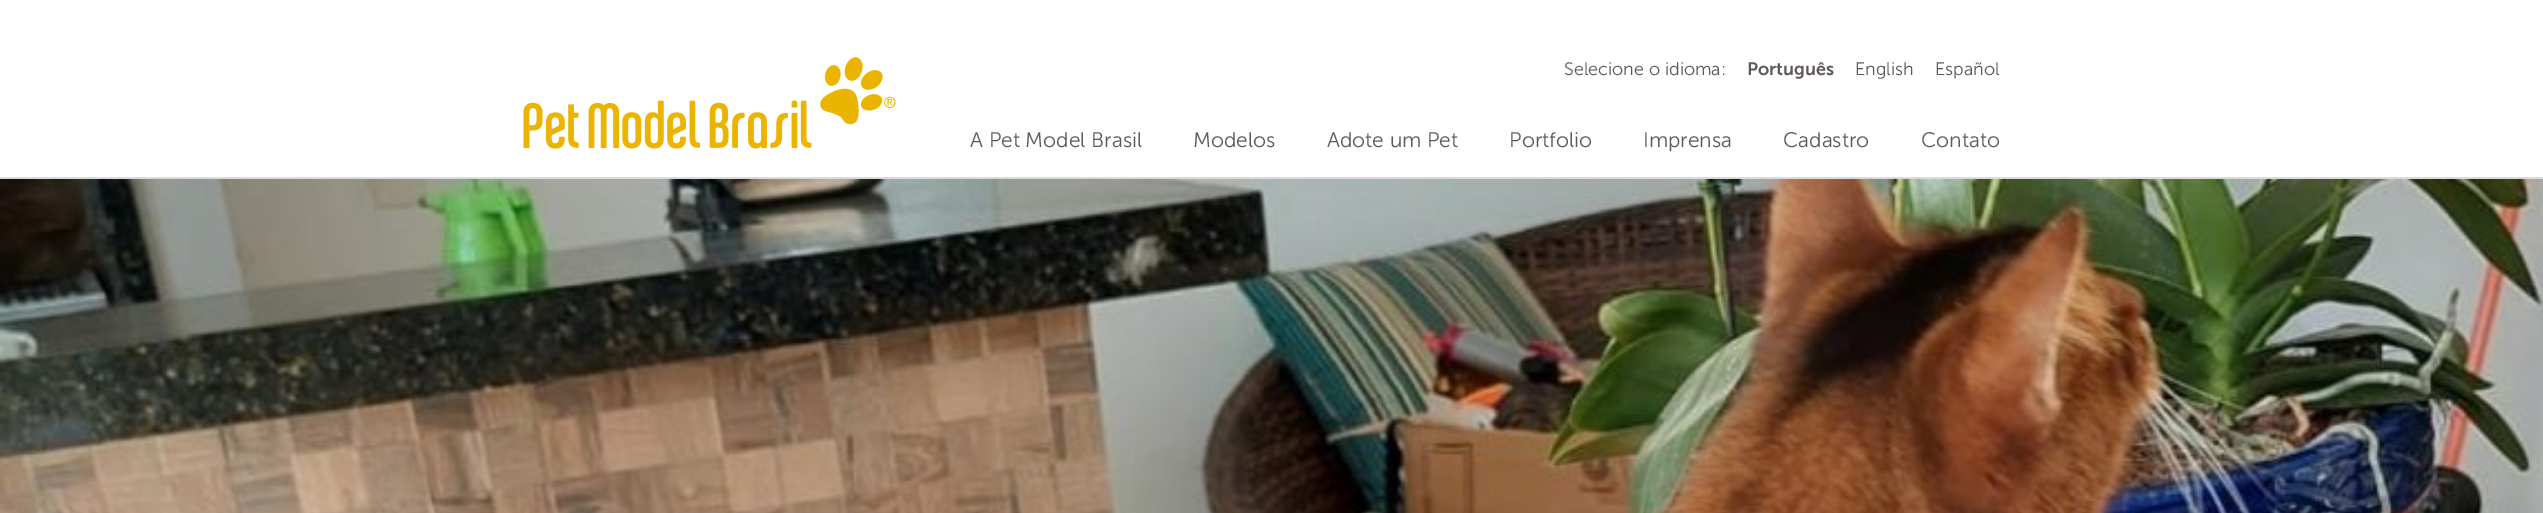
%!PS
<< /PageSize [2543 513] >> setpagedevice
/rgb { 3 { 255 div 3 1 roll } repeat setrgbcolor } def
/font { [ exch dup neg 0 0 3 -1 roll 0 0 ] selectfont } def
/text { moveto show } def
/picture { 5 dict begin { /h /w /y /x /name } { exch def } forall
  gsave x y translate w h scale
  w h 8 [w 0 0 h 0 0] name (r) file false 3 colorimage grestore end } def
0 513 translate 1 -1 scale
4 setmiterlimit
255 255 255 rgb
0 0 2543 513 rectfill
218 218 218 rgb
0 177 2543 2 rectfill
(img_01.rgb) 523 57 373 92 picture
(img_02.rgb) 0 179 2543 334 picture
/MuseoSans-Light 18 font
94 89 86 rgb
(Selecione o idioma:) 1564 75 text
/MuseoSans-SemiBold 18 font
(Português) 1747 75 text
/MuseoSans-Light 18 font
(English) 1855 75 text
(Español) 1935 75 text
/MuseoSans-Light 21 font
(A Pet Model Brasil) 970 147 text
(Modelos) 1193 147 text
(Adote um Pet) 1327 147 text
(Portfolio) 1509 147 text
(Imprensa) 1643 147 text
(Cadastro) 1783 147 text
(Contato) 1921 147 text
showpage
